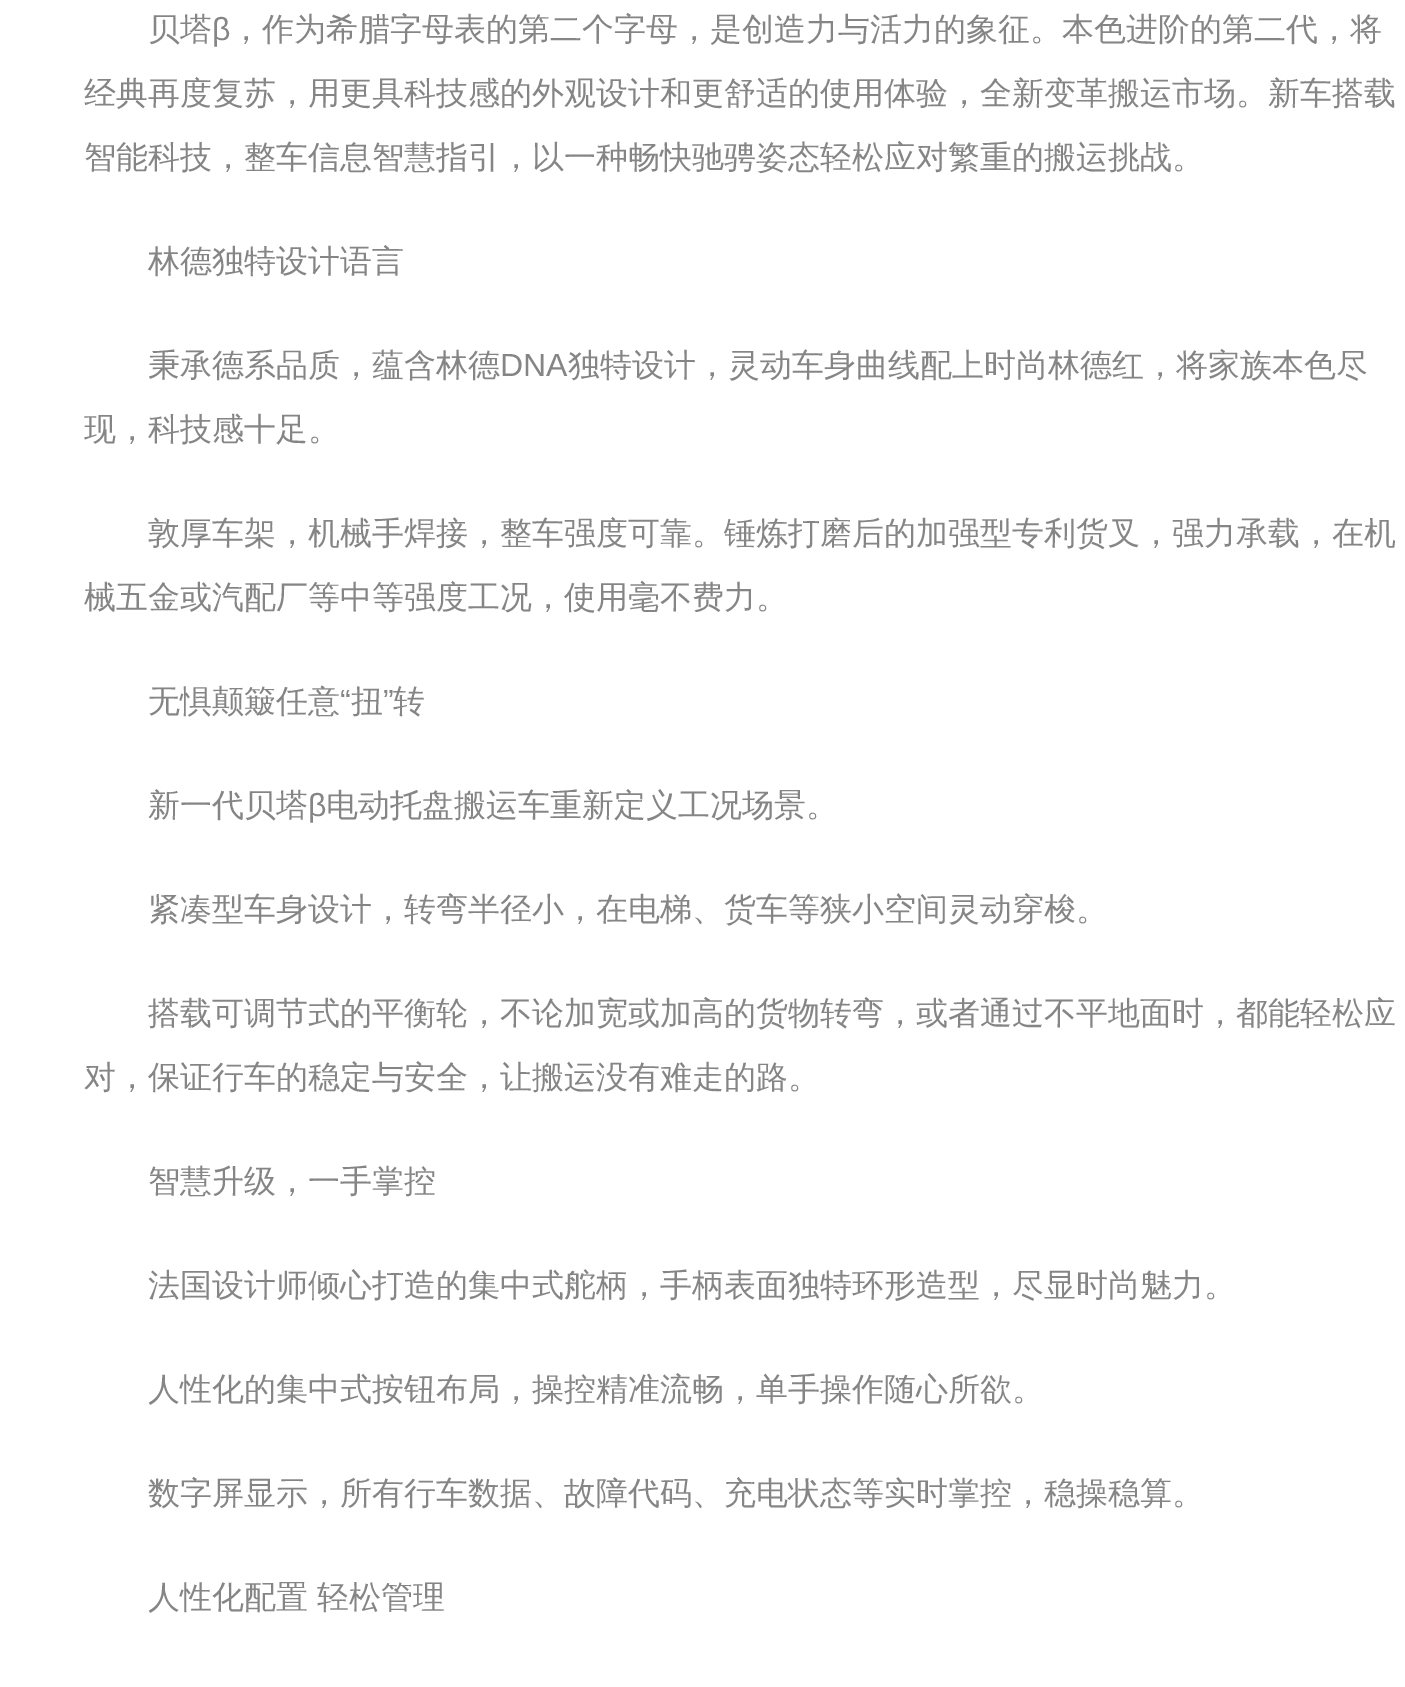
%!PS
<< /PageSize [1405 1687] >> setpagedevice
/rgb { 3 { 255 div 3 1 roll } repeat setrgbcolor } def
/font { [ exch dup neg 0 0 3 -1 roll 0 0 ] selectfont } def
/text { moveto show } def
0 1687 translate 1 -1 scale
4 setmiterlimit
255 255 255 rgb
0 0 1405 1687 rectfill
/WenQuanYiZenHei-Medium 32 font
133 133 133 rgb
(贝塔) 148 40 text
/LiberationSans-Regular 32 font
(β) 212 40 text
/WenQuanYiZenHei-Medium 32 font
(，作为希腊字母表的第二个字母，是创造力与活力的象征。本色进阶的第二代，将) 230 40 text
(经典再度复苏，用更具科技感的外观设计和更舒适的使用体验，全新变革搬运市场。新车搭载) 84 104 text
(智能科技，整车信息智慧指引，以一种畅快驰骋姿态轻松应对繁重的搬运挑战。) 84 168 text
(林德独特设计语言) 148 272 text
(秉承德系品质，蕴含林德) 148 376 text
/LiberationSans-Regular 32 font
(DNA) 500 376 text
/WenQuanYiZenHei-Medium 32 font
(独特设计，灵动车身曲线配上时尚林德红，将家族本色尽) 568 376 text
(现，科技感十足。) 84 440 text
(敦厚车架，机械手焊接，整车强度可靠。锤炼打磨后的加强型专利货叉，强力承载，在机) 148 544 text
(械五金或汽配厂等中等强度工况，使用毫不费力。) 84 608 text
(无惧颠簸任意) 148 712 text
/LiberationSans-Regular 32 font
(“) 340 712 text
/WenQuanYiZenHei-Medium 32 font
(扭) 351 712 text
/LiberationSans-Regular 32 font
(”) 383 712 text
/WenQuanYiZenHei-Medium 32 font
(转) 393 712 text
(新一代贝塔) 148 816 text
/LiberationSans-Regular 32 font
(β) 308 816 text
/WenQuanYiZenHei-Medium 32 font
(电动托盘搬运车重新定义工况场景。) 326 816 text
(紧凑型车身设计，转弯半径小，在电梯、货车等狭小空间灵动穿梭。) 148 920 text
(搭载可调节式的平衡轮，不论加宽或加高的货物转弯，或者通过不平地面时，都能轻松应) 148 1024 text
(对，保证行车的稳定与安全，让搬运没有难走的路。) 84 1088 text
(智慧升级，一手掌控) 148 1192 text
(法国设计师倾心打造的集中式舵柄，手柄表面独特环形造型，尽显时尚魅力。) 148 1296 text
(人性化的集中式按钮布局，操控精准流畅，单手操作随心所欲。) 148 1400 text
(数字屏显示，所有行车数据、故障代码、充电状态等实时掌控，稳操稳算。) 148 1504 text
148 1608 moveto -1 0 32 (人性化配置 轻松管理) widthshow
showpage
